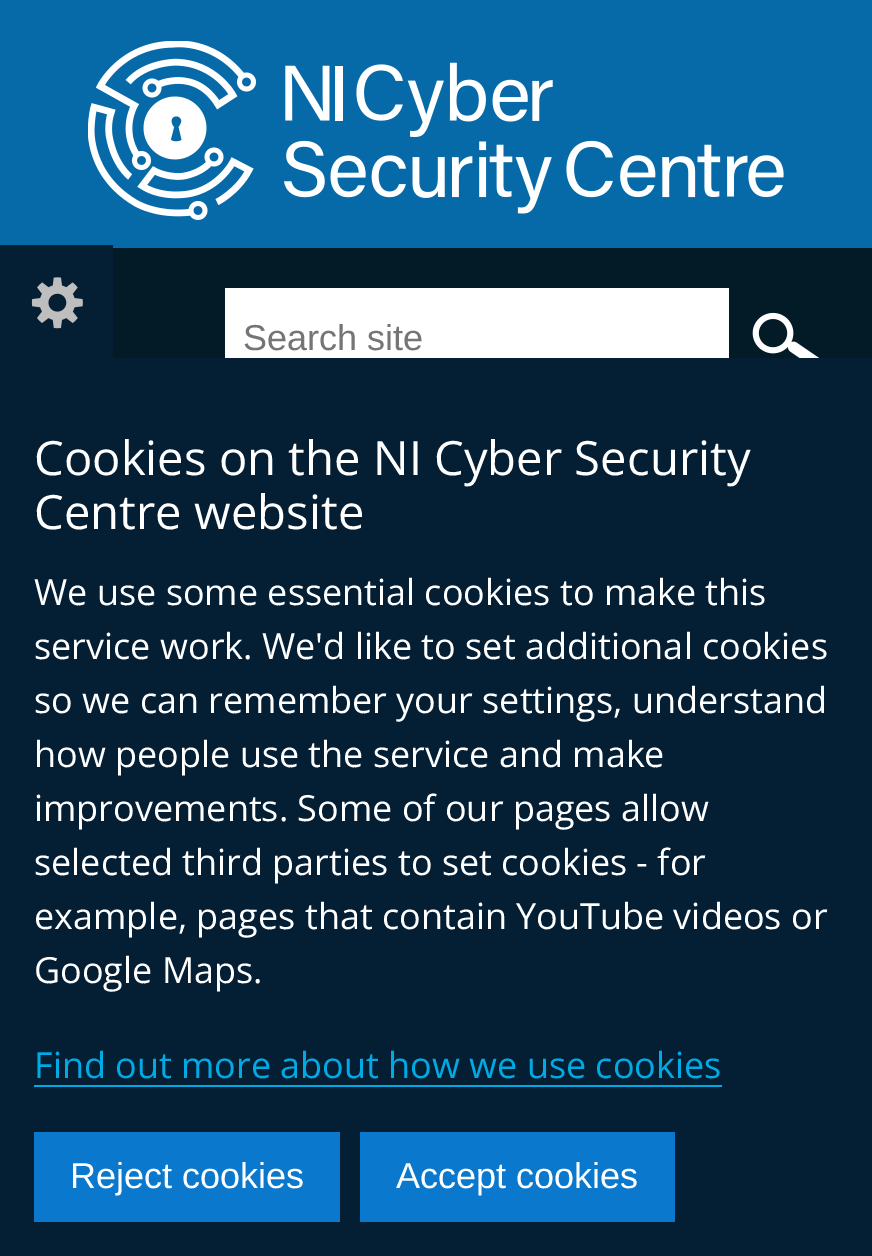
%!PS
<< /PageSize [872 1256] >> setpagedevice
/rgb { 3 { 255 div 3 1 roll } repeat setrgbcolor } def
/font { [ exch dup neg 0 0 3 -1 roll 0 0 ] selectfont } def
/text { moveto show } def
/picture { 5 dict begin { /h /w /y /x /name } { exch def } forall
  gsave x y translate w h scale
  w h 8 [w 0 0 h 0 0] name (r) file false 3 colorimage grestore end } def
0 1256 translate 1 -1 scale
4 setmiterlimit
6 106 168 rgb
0 0 872 1256 rectfill
(img_01.rgb) 88 41 696 179 picture
2 27 39 rgb
113 248 759 110 rectfill
255 255 255 rgb
225 288 504 70 rectfill
(img_02.rgb) 752 312 67 46 picture
4 30 52 rgb
0 245 113 113 rectfill
(img_03.rgb) 31 277 52 52 picture
0 358 872 898 rectfill
0 170 229 rgb
34 1085 688 2 rectfill
10 120 205 rgb
34 1132 306 90 rectfill
360 1132 315 90 rectfill
/LiberationSans-Regular 36 font
117 117 117 rgb
(Search site) 243 350 text
/OpenSans-Regular 47.25 font
255 255 255 rgb
(Cookies on the NI Cyber Security) 34 475 text
(Centre website) 34 529 text
/OpenSans-Regular 36 font
(We use some essential cookies to make this) 34 605 text
(service work. We'd like to set additional cookies) 34 659 text
(so we can remember your settings, understand) 34 713 text
(how people use the service and make) 34 767 text
(improvements. Some of our pages allow) 34 821 text
(selected third parties to set cookies - for) 34 875 text
(example, pages that contain YouTube videos or) 34 929 text
(Google Maps.) 34 983 text
0 170 229 rgb
(Find out more about how we use cookies) 34 1078 text
/LiberationSans-Regular 36 font
255 255 255 rgb
(Reject cookies) 70 1188 text
(Accept cookies) 396 1188 text
showpage
